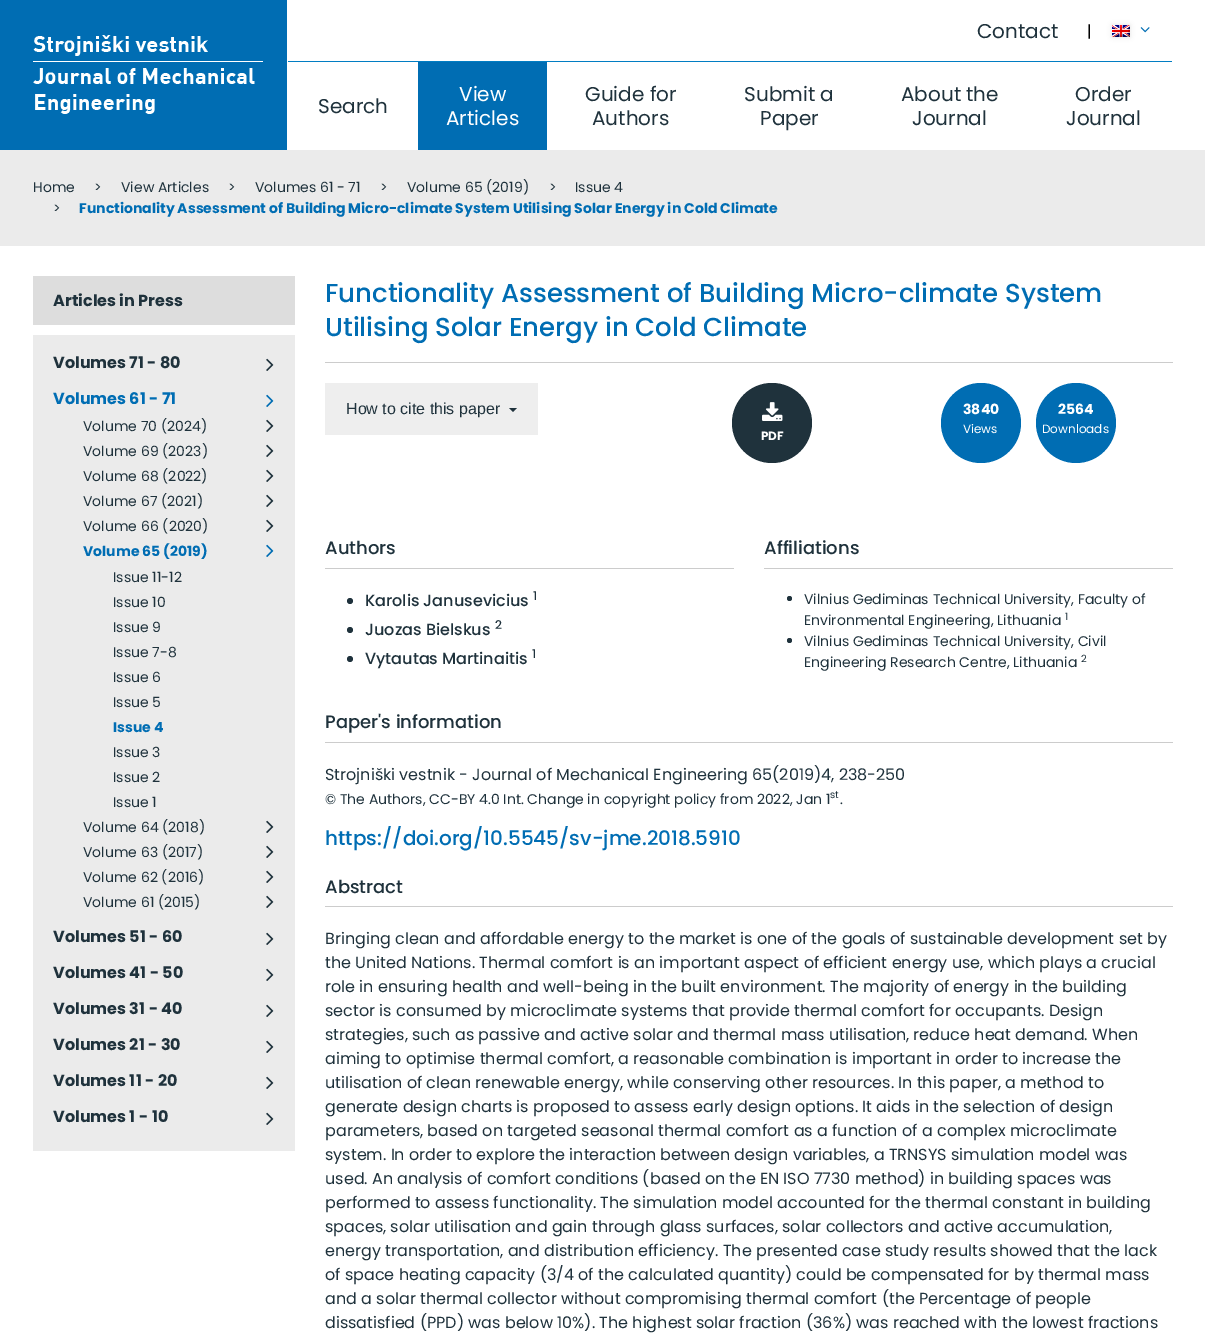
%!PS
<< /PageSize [1205 1336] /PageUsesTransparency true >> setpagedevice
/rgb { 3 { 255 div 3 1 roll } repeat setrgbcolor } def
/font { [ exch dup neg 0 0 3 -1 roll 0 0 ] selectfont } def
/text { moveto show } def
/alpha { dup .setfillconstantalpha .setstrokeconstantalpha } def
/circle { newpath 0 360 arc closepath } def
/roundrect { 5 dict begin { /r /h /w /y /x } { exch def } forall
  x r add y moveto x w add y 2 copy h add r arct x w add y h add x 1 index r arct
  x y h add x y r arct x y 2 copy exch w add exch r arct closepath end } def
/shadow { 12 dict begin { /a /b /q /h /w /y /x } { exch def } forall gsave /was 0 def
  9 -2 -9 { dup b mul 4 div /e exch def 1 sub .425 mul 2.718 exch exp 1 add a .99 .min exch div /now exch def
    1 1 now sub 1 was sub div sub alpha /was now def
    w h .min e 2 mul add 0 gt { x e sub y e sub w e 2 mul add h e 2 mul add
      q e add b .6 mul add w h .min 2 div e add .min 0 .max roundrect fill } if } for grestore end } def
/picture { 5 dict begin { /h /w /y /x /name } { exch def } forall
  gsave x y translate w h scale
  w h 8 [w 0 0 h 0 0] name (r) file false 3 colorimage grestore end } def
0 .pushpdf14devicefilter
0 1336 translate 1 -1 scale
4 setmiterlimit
255 255 255 rgb
0 0 1205 1336 rectfill
0 109 179 rgb
0 0 287 150 rectfill
(img_01.rgb) 33 35 230 79 picture
0 0 0 rgb
1112 25 18 12 0 2.5 0.1 shadow
(img_02.rgb) 1112 25 18 12 picture
(img_03.rgb) 1140 27 10 6 picture
1 125 195 rgb
288 61 884 1 rectfill
0 109 179 rgb
418 62 129 88 rectfill
235 235 235 rgb
0 150 1205 96 rectfill
33 335 262 816 rectfill
221 221 221 rgb
33 276 262 49 rectfill
(img_04.rgb) 266 358 8 13 picture
(img_05.rgb) 266 394 8 13 picture
(img_04.rgb) 266 419 8 13 picture
(img_04.rgb) 266 444 8 13 picture
(img_04.rgb) 266 469 8 13 picture
(img_04.rgb) 266 494 8 13 picture
(img_04.rgb) 266 519 8 13 picture
(img_05.rgb) 266 544 8 13 picture
(img_04.rgb) 266 820 8 13 picture
(img_04.rgb) 266 845 8 13 picture
(img_04.rgb) 266 870 8 13 picture
(img_04.rgb) 266 895 8 13 picture
(img_04.rgb) 266 932 8 13 picture
(img_04.rgb) 266 968 8 13 picture
(img_04.rgb) 266 1004 8 13 picture
(img_04.rgb) 266 1040 8 13 picture
(img_04.rgb) 266 1076 8 13 picture
(img_04.rgb) 266 1112 8 13 picture
204 204 204 rgb
325 362 848 1 rectfill
238 238 238 rgb
325 383 213 52 rectfill
31 50 60 rgb
509 408 moveto 8 0 rlineto -4 4 rlineto closepath fill
0 109 179 rgb
981 423 40 circle fill
1076 423 40 circle fill
31 50 60 rgb
772 423 40 circle fill
(img_06.rgb) 762 402 21 19 picture
204 204 204 rgb
325 568 409 1 rectfill
31 50 60 rgb
350 601 3 circle fill
350 630 3 circle fill
350 659 3 circle fill
204 204 204 rgb
764 568 409 1 rectfill
31 50 60 rgb
789.5 598.5 2.5 circle fill
789.5 640.5 2.5 circle fill
204 204 204 rgb
325 742 848 1 rectfill
325 906 848 1 rectfill
/Poppins-Regular 20 font
31 50 60 rgb
(Contact) 977 38 text
/Poppins-Regular 16 font
0 0 0 rgb
(|) 1087 37 text
/Poppins-Regular 20 font
31 50 60 rgb
(Search) 318 113 text
255 255 255 rgb
(View) 459 101 text
(Articles) 446 125 text
31 50 60 rgb
(Guide for) 585 101 text
(Authors) 592 125 text
(Submit a) 744 101 text
(Paper) 760 125 text
(About the) 901 101 text
(Journal) 912 125 text
(Order) 1075 101 text
(Journal) 1066 125 text
/Poppins-Regular 14 font
(Home) 33 192 text
(>) 94 192 text
(View Articles) 121 192 text
(>) 228 192 text
(Volumes 61 - 71) 255 192 text
(>) 380 192 text
(Volume 65 \(2019\)) 407 192 text
(>) 549 192 text
(Issue 4) 575 192 text
(>) 53 213 text
/Poppins-Bold 14 font
0 109 179 rgb
(Functionality Assessment of Building Micro-climate System Utilising Solar Energy in Cold Climate) 79 213 text
/Poppins-Bold 16 font
31 50 60 rgb
(Articles in Press) 53 306 text
(Volumes 71 - 80) 53 368 text
0 109 179 rgb
(Volumes 61 - 71) 53 404 text
/Poppins-Regular 14 font
31 50 60 rgb
(Volume 70 \(2024\)) 83 431 text
(Volume 69 \(2023\)) 83 456 text
(Volume 68 \(2022\)) 83 481 text
(Volume 67 \(2021\)) 83 506 text
(Volume 66 \(2020\)) 83 531 text
/Poppins-Bold 14 font
0 109 179 rgb
(Volume 65 \(2019\)) 83 556 text
/Poppins-Regular 14 font
31 50 60 rgb
(Issue 11-12) 113 582 text
(Issue 10) 113 607 text
(Issue 9) 113 632 text
(Issue 7-8) 113 657 text
(Issue 6) 113 682 text
(Issue 5) 113 707 text
/Poppins-Bold 14 font
0 109 179 rgb
(Issue 4) 113 732 text
/Poppins-Regular 14 font
31 50 60 rgb
(Issue 3) 113 757 text
(Issue 2) 113 782 text
(Issue 1) 113 807 text
(Volume 64 \(2018\)) 83 832 text
(Volume 63 \(2017\)) 83 857 text
(Volume 62 \(2016\)) 83 882 text
(Volume 61 \(2015\)) 83 907 text
/Poppins-Bold 16 font
(Volumes 51 - 60) 53 942 text
(Volumes 41 - 50) 53 978 text
(Volumes 31 - 40) 53 1014 text
(Volumes 21 - 30) 53 1050 text
(Volumes 11 - 20) 53 1086 text
(Volumes 1 - 10) 53 1122 text
/Poppins-Medium 26 font
0 109 179 rgb
(Functionality Assessment of Building Micro-climate System) 325 302 text
(Utilising Solar Energy in Cold Climate) 325 336 text
/LiberationSans-Regular 16 font
31 50 60 rgb
(How to cite this paper) 346 414 text
/Poppins-Bold 14 font
255 255 255 rgb
(3840) 963 414 text
/Poppins-Regular 12 font
(Views) 963 433 text
/Poppins-Bold 14 font
(2564) 1058 414 text
/Poppins-Regular 12 font
(Downloads) 1042 433 text
/Poppins-Bold 12 font
(PDF) 761 440 text
/Poppins-Medium 18 font
31 50 60 rgb
(Authors) 325 554 text
/Poppins-Medium 16 font
(Karolis Janusevicius) 365 606 text
/Poppins-Medium 12 font
(1) 533 600 text
/Poppins-Medium 16 font
(Juozas Bielskus) 365 635 text
/Poppins-Medium 12 font
(2) 495 629 text
/Poppins-Medium 16 font
(Vytautas Martinaitis) 365 664 text
/Poppins-Medium 12 font
(1) 532 658 text
/Poppins-Medium 18 font
(Affiliations) 764 554 text
/Poppins-Regular 14 font
(Vilnius Gediminas Technical University, Faculty of) 804 604 text
(Environmental Engineering, Lithuania) 804 625 text
/Poppins-Regular 10 font
(1) 1065 620 text
/Poppins-Regular 14 font
(Vilnius Gediminas Technical University, Civil) 804 646 text
(Engineering Research Centre, Lithuania) 804 667 text
/Poppins-Regular 10 font
(2) 1081 662 text
/Poppins-Medium 18 font
(Paper's information) 325 728 text
/Poppins-Regular 16 font
(Strojniški vestnik - Journal of Mechanical Engineering 65\(2019\)4, 238-250) 325 780 text
/Poppins-Regular 14 font
(© The Authors, CC-BY 4.0 Int. Change in copyright policy from 2022, Jan 1) 325 804 text
/Poppins-Regular 10 font
(st) 830 798 text
/Poppins-Regular 14 font
(.) 840 804 text
/Poppins-Medium 20 font
0 109 179 rgb
(https://doi.org/10.5545/sv-jme.2018.5910) 325 845 text
/Poppins-Medium 18 font
31 50 60 rgb
(Abstract) 325 893 text
/Poppins-Regular 16 font
(Bringing clean and affordable energy to the market is one of the goals of sustainable development set by) 325 944 text
(the United Nations. Thermal comfort is an important aspect of efficient energy use, which plays a crucial) 325 968 text
(role in ensuring health and well-being in the built environment. The majority of energy in the building) 325 992 text
(sector is consumed by microclimate systems that provide thermal comfort for occupants. Design) 325 1016 text
(strategies, such as passive and active solar and thermal mass utilisation, reduce heat demand. When) 325 1040 text
(aiming to optimise thermal comfort, a reasonable combination is important in order to increase the) 325 1064 text
(utilisation of clean renewable energy, while conserving other resources. In this paper, a method to) 325 1088 text
(generate design charts is proposed to assess early design options. It aids in the selection of design) 325 1112 text
(parameters, based on targeted seasonal thermal comfort as a function of a complex microclimate) 325 1136 text
(system. In order to explore the interaction between design variables, a TRNSYS simulation model was) 325 1160 text
(used. An analysis of comfort conditions \(based on the EN ISO 7730 method\) in building spaces was) 325 1184 text
(performed to assess functionality. The simulation model accounted for the thermal constant in building) 325 1208 text
(spaces, solar utilisation and gain through glass surfaces, solar collectors and active accumulation,) 325 1232 text
(energy transportation, and distribution efficiency. The presented case study results showed that the lack) 325 1256 text
(of space heating capacity \(3/4 of the calculated quantity\) could be compensated for by thermal mass) 325 1280 text
(and a solar thermal collector without compromising thermal comfort \(the Percentage of people) 325 1304 text
(dissatisfied \(PPD\) was below 10%\). The highest solar fraction \(36%\) was reached with the lowest fractions) 325 1328 text
.poppdf14devicefilter showpage
